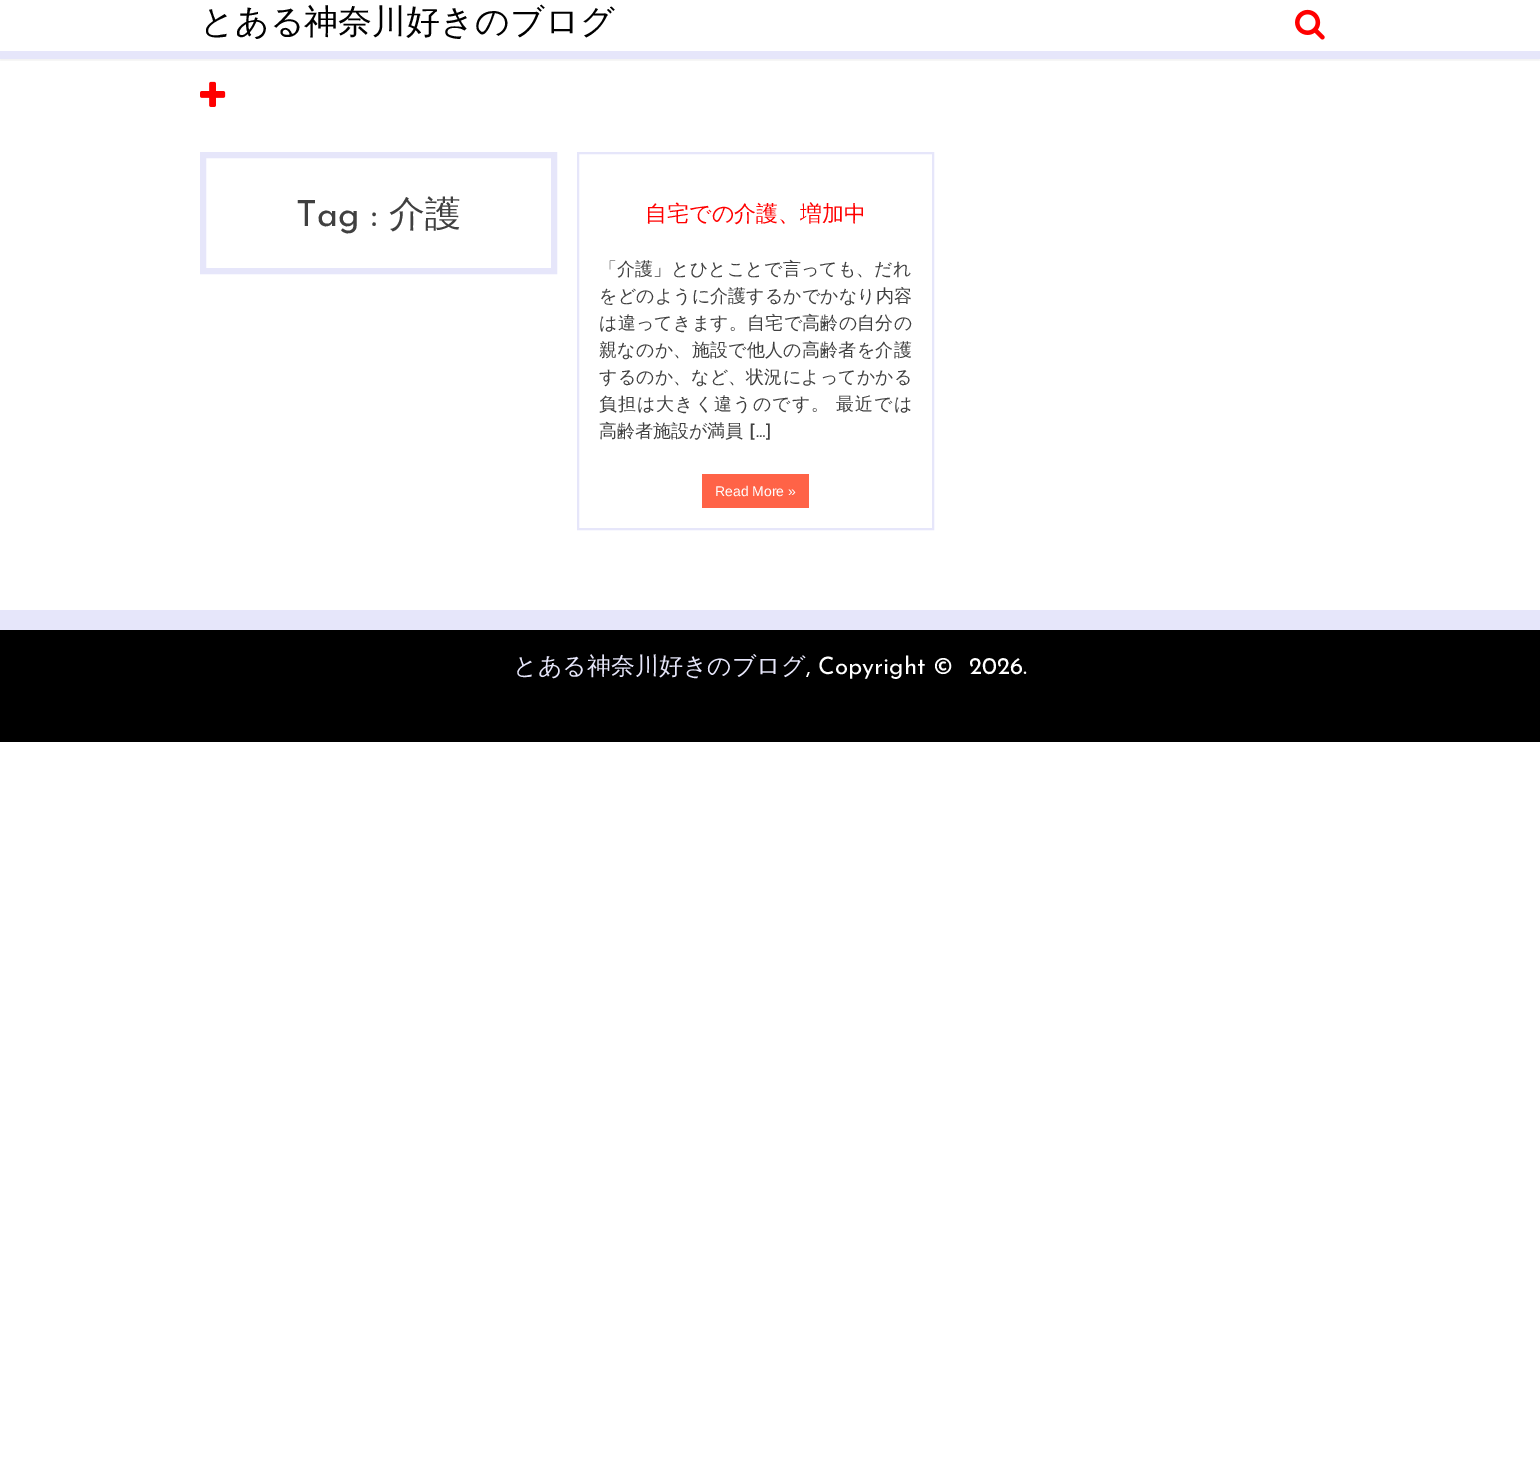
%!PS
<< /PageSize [1540 1483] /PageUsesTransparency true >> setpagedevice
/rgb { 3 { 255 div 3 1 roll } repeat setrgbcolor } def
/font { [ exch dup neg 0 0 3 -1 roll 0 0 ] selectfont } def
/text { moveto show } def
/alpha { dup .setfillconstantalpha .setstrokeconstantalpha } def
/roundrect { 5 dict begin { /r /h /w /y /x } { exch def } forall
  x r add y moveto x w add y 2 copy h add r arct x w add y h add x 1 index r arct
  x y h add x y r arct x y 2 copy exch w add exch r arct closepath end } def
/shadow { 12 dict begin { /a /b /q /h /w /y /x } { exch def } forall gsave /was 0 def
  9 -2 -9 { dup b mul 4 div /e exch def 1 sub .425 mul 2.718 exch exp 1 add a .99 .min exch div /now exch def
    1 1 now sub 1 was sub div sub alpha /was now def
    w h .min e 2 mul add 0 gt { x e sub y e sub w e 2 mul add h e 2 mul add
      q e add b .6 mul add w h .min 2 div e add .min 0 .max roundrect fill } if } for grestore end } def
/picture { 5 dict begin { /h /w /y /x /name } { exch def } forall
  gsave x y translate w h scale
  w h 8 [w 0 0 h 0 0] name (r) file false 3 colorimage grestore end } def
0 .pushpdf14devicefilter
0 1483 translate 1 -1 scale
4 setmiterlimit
255 255 255 rgb
0 0 1540 1483 rectfill
gsave
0 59 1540 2 rectclip
0 0 0 rgb
0 1 1540 59 0 2.5 0.07 shadow
grestore
230 230 250 rgb
0 51 1540 8 rectfill
(img_01.rgb) 1295 9 30 31 picture
(img_02.rgb) 200 81 26 26 picture
6 setlinewidth
203 155 351 116 rectstroke
2 setlinewidth
578 153 355 376 rectstroke
255 99 71 rgb
702 474 107 34 rectfill
0 0 0 rgb
0 630 1540 112 rectfill
230 230 250 rgb
0 610 1540 20 rectfill
/WenQuanYiZenHei-Medium 34 font
0 0 0 rgb
(とある神奈川好きのブログ) 200 33 text
/JosefinSans-Regular 36 font
64 64 64 rgb
(Tag :) 296 226 text
/WenQuanYiZenHei-Medium 36 font
(介護) 389 226 text
/WenQuanYiZenHei-Medium 22 font
255 0 0 rgb
(自宅での介護、増加中) 645 221 text
/WenQuanYiZenHei-Medium 18 font
64 64 64 rgb
599 275 moveto 0.1 0 (「介護」とひとことで言っても、だれ) ashow
599 302 moveto 0.1 0 (をどのように介護するかでかなり内容) ashow
599 329 moveto 0.2 0 (は違ってきます。自宅で高齢の自分の) ashow
599 356 moveto 0.25 0 (親なのか、施設で他人の高齢者を介護) ashow
599 383 moveto 0.1 0 (するのか、など、状況によってかかる) ashow
599 410 moveto 1 0 (負担は大きく違うのです。 最近では) ashow
(高齢者施設が満員) 599 437 text
/JosefinSans-Regular 18 font
([…]) 749 437 text
/LiberationSans-Regular 14 font
255 255 255 rgb
(Read More ») 715 496 text
/WenQuanYiZenHei-Medium 24 font
230 230 250 rgb
(とある神奈川好きのブログ) 513 674 text
/JosefinSans-Regular 24 font
255 255 255 rgb
(, Copyright ©  2026.) 806 674 text
.poppdf14devicefilter showpage
